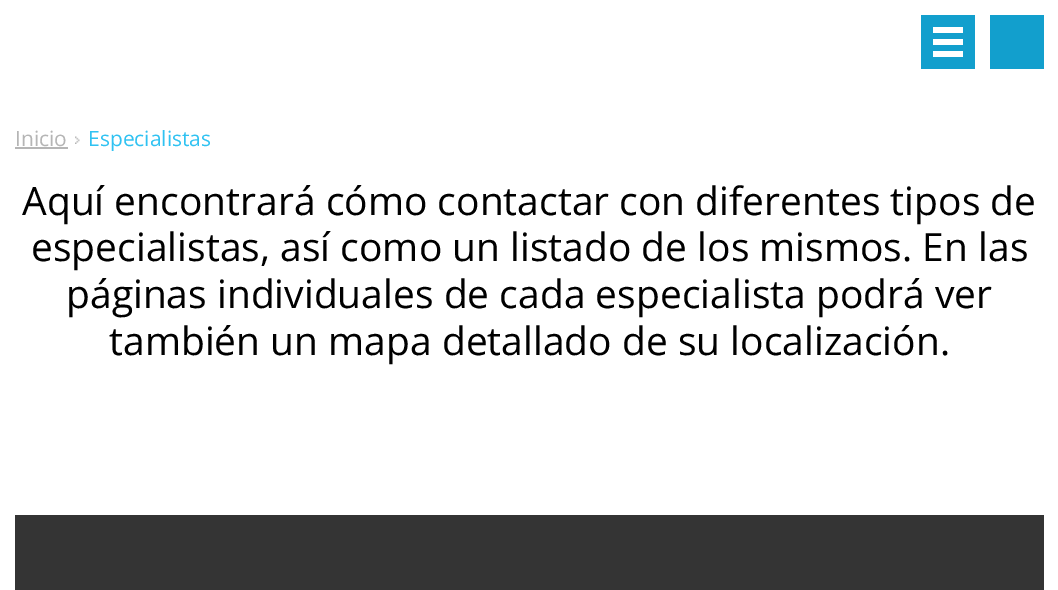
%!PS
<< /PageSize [1058 590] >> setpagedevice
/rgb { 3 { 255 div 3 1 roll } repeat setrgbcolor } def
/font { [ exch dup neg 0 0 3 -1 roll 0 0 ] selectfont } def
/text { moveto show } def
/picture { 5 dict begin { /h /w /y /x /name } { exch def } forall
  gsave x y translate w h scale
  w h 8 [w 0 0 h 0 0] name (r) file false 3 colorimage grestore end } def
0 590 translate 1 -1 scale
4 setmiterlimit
255 255 255 rgb
0 0 1058 590 rectfill
18 159 205 rgb
921 15 54 54 rectfill
255 255 255 rgb
933 27 30 6 rectfill
933 51 30 6 rectfill
933 39 30 6 rectfill
18 159 205 rgb
990 15 54 54 rectfill
181 181 181 rgb
15 147 53 2 rectfill
(img_01.rgb) 75 136 5 8 picture
52 52 52 rgb
15 515 1029 75 rectfill
/OpenSans-Regular 21 font
181 181 181 rgb
(Inicio) 15 146 text
47 194 242 rgb
(Especialistas) 88 146 text
/OpenSans-Regular 39 font
0 0 0 rgb
(Aquí encontrará cómo contactar con diferentes tipos de) 22 215 text
(especialistas, así como un listado de los mismos. En las) 31 261 text
(páginas individuales de cada especialista podrá ver) 66 308 text
(también un mapa detallado de su localización.) 109 355 text
showpage
